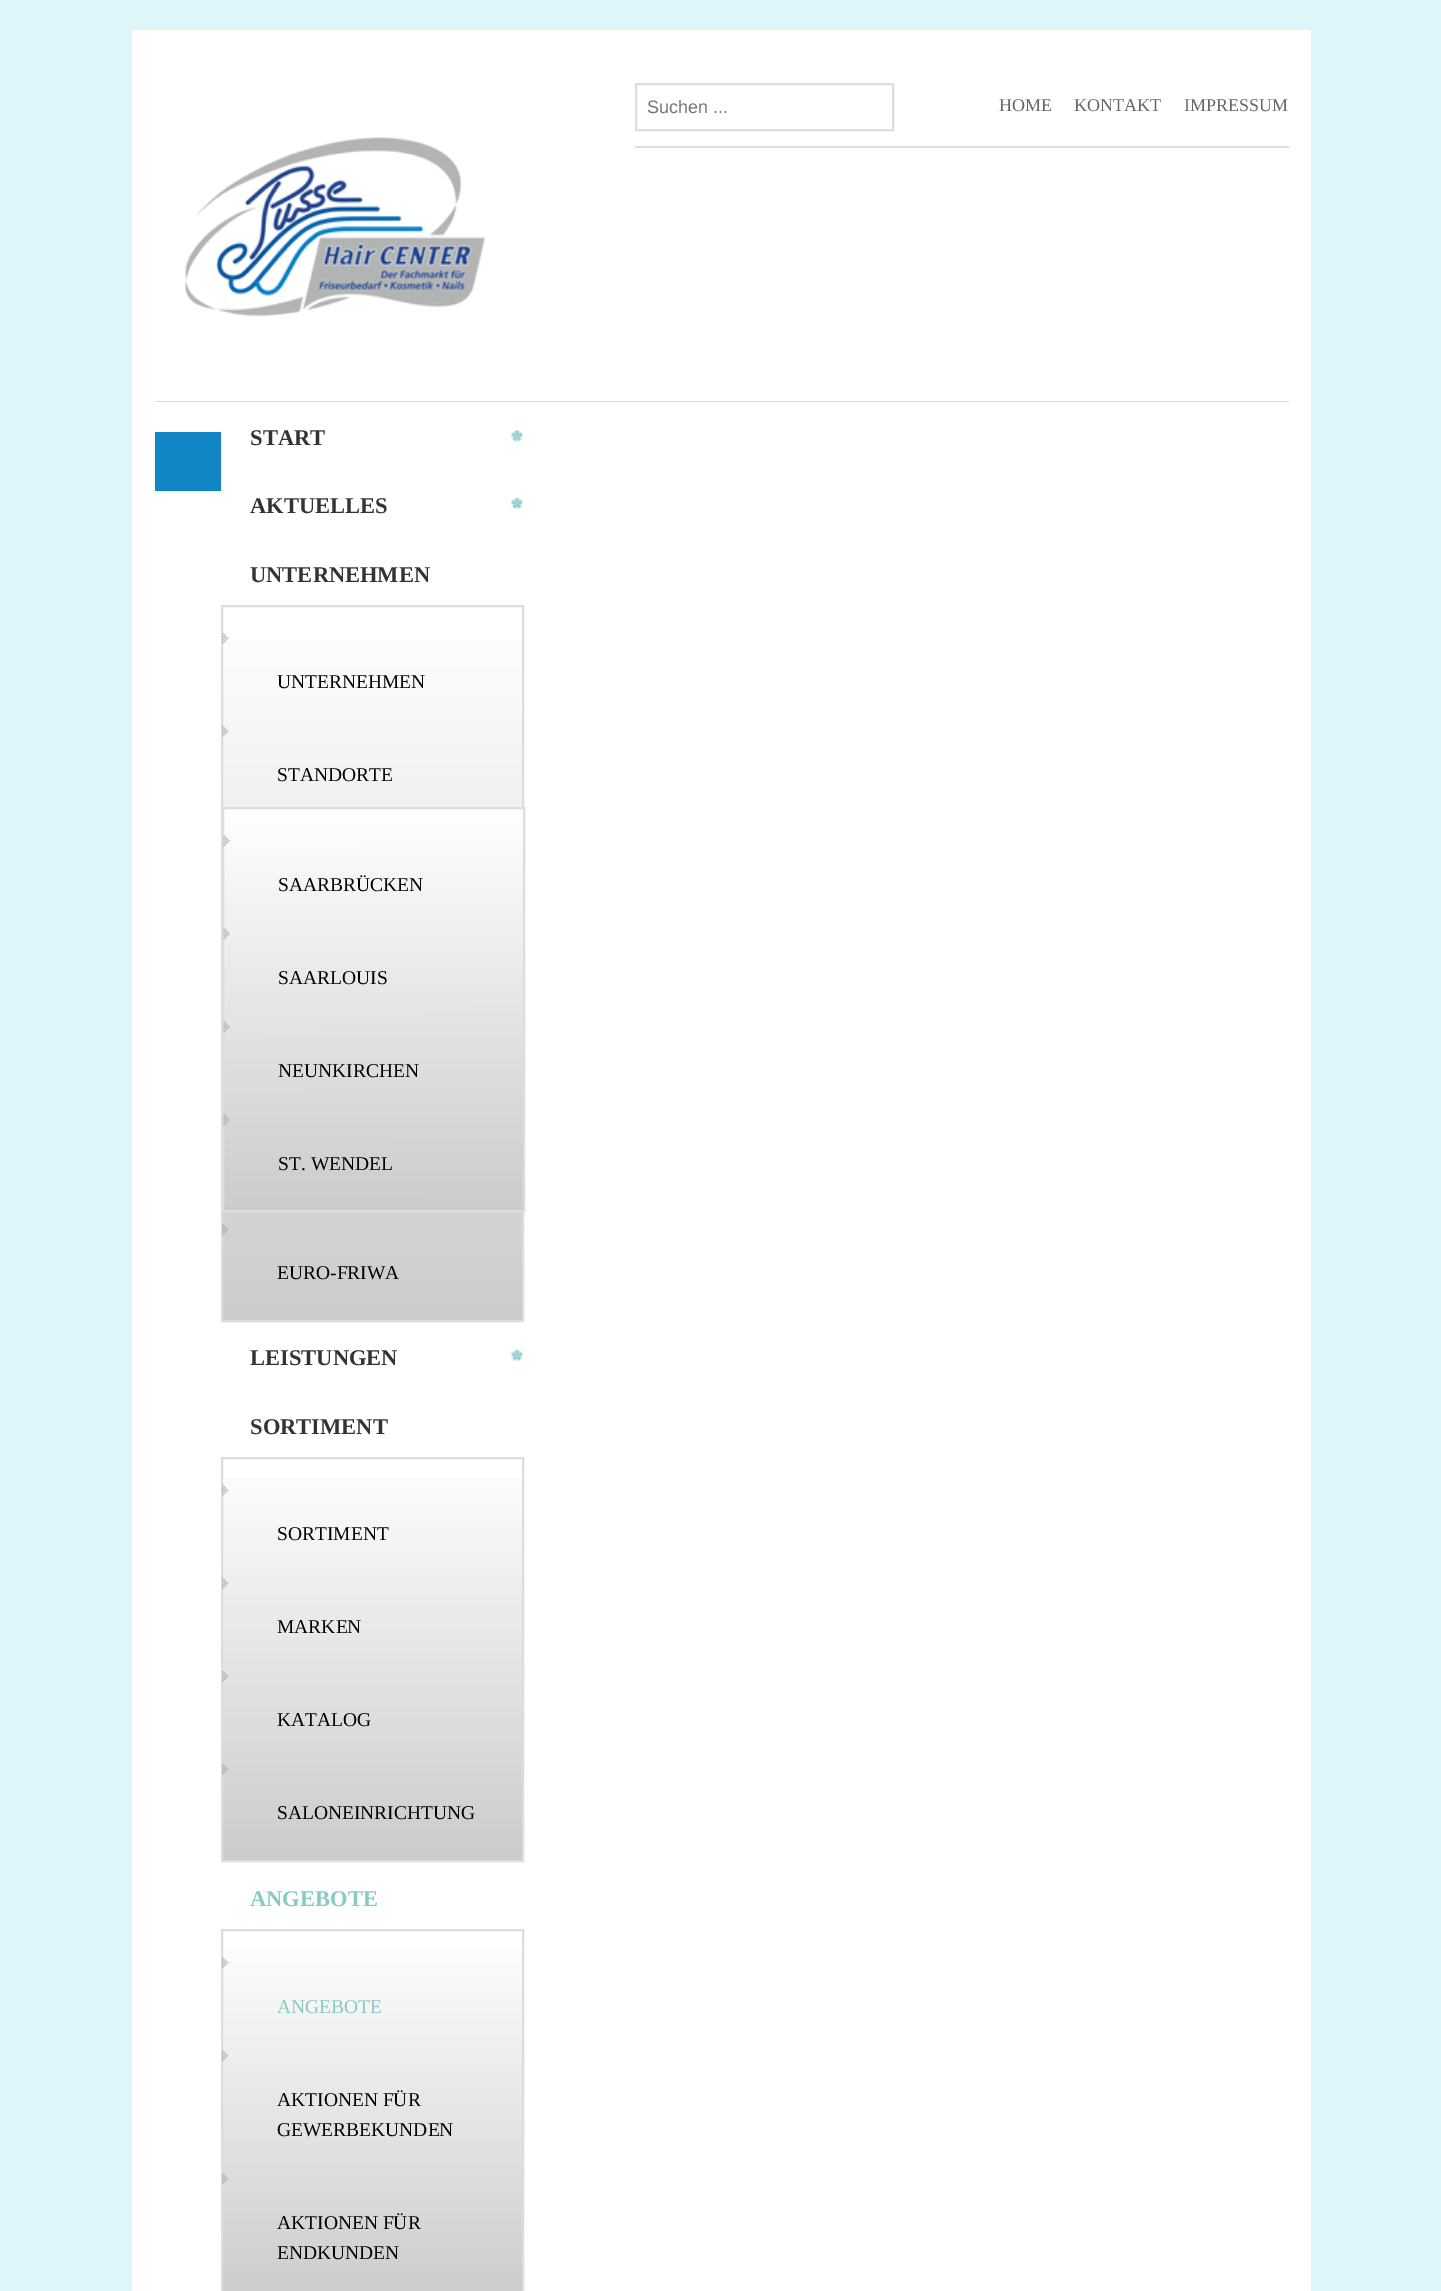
%!PS
<< /PageSize [1441 2291] >> setpagedevice
/rgb { 3 { 255 div 3 1 roll } repeat setrgbcolor } def
/font { [ exch dup neg 0 0 3 -1 roll 0 0 ] selectfont } def
/text { moveto show } def
/picture { 5 dict begin { /h /w /y /x /name } { exch def } forall
  gsave x y translate w h scale
  w h 8 [w 0 0 h 0 0] name (r) file false 3 colorimage grestore end } def
0 2291 translate 1 -1 scale
4 setmiterlimit
221 246 250 rgb
0 0 1441 2291 rectfill
255 255 255 rgb
132 30 1179 2261 rectfill
221 221 221 rgb
635 146 654 2 rectfill
2 setlinewidth
636 84 257 46 rectstroke
(img_01.rgb) 185 137 301 180 picture
155 401 1134 1 rectfill
18 133 197 rgb
155 432 66 59 rectfill
(img_02.rgb) 511 430 13 12 picture
(img_03.rgb) 511 497 13 12 picture
gsave 223 641 moveto 299 0 rlineto 0 679 rlineto -299 0 rlineto closepath clip newpath
<< /ShadingType 2 /ColorSpace /DeviceRGB /Coords [372 606 372 1320] /Extend [true true] /Function << /FunctionType 2 /Domain [0 1] /C0 [1 1 1] /C1 [0.8 0.8 0.8] /N 1 >> >> shfill grestore
221 221 221 rgb
222 606 301 715 rectstroke
(img_04.rgb) 222 632 7 12 picture
(img_05.rgb) 222 725 7 12 picture
gsave 224 809 moveto 299 0 rlineto 0 401 rlineto -299 0 rlineto closepath clip newpath
<< /ShadingType 2 /ColorSpace /DeviceRGB /Coords [373 809 374 1211] /Extend [true true] /Function << /FunctionType 2 /Domain [0 1] /C0 [1 1 1] /C1 [0.8 0.8 0.8] /N 1 >> >> shfill grestore
223 808 301 403 rectstroke
(img_06.rgb) 223 835 7 11 picture
(img_07.rgb) 223 928 7 11 picture
(img_08.rgb) 223 1021 7 11 picture
(img_09.rgb) 223 1114 7 11 picture
(img_10.rgb) 222 1223 7 12 picture
(img_03.rgb) 511 1349 13 12 picture
gsave 223 1478 moveto 299 0 rlineto 0 382 rlineto -299 0 rlineto closepath clip newpath
<< /ShadingType 2 /ColorSpace /DeviceRGB /Coords [372 1458 372 1860] /Extend [true true] /Function << /FunctionType 2 /Domain [0 1] /C0 [1 1 1] /C1 [0.8 0.8 0.8] /N 1 >> >> shfill grestore
222 1458 301 403 rectstroke
(img_11.rgb) 222 1484 7 12 picture
(img_12.rgb) 222 1577 7 12 picture
(img_13.rgb) 222 1670 7 12 picture
(img_14.rgb) 222 1763 7 12 picture
gsave 223 1949 moveto 299 0 rlineto 0 342 rlineto -299 0 rlineto closepath clip newpath
<< /ShadingType 2 /ColorSpace /DeviceRGB /Coords [372 1931 372 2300] /Extend [true true] /Function << /FunctionType 2 /Domain [0 1] /C0 [1 1 1] /C1 [0.8 0.8 0.8] /N 1 >> >> shfill grestore
222 1930 301 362 rectstroke
(img_15.rgb) 222 1957 7 11 picture
(img_16.rgb) 222 2050 7 11 picture
(img_17.rgb) 222 2173 7 11 picture
/LiberationSans-Regular 18 font
117 117 117 rgb
(Suchen ...) 647 113 text
/LiberationSerif-Regular 18 font
102 102 102 rgb
(HOME) 999 111 text
(KONTAKT) 1074 111 text
(IMPRESSUM) 1184 111 text
/LiberationSerif-Bold 22.5 font
51 51 51 rgb
(START) 250 445 text
(AKTUELLES) 250 513 text
(UNTERNEHMEN) 250 582 text
/LiberationSerif-Regular 19.5 font
0 0 0 rgb
(UNTERNEHMEN) 277 688 text
(STANDORTE) 277 781 text
(SAARBRÜCKEN) 278 891 text
(SAARLOUIS) 278 984 text
(NEUNKIRCHEN) 278 1077 text
(ST. WENDEL) 278 1170 text
(EURO-FRIWA) 277 1279 text
/LiberationSerif-Bold 22.5 font
51 51 51 rgb
(LEISTUNGEN) 250 1365 text
(SORTIMENT) 250 1434 text
/LiberationSerif-Regular 19.5 font
0 0 0 rgb
(SORTIMENT) 277 1540 text
(MARKEN) 277 1633 text
(KATALOG) 277 1726 text
(SALONEINRICHTUNG) 277 1819 text
/LiberationSerif-Bold 22.5 font
135 202 194 rgb
(ANGEBOTE) 250 1906 text
/LiberationSerif-Regular 19.5 font
(ANGEBOTE) 277 2013 text
0 0 0 rgb
(AKTIONEN FÜR) 277 2106 text
(GEWERBEKUNDEN) 277 2136 text
(AKTIONEN FÜR) 277 2229 text
(ENDKUNDEN) 277 2259 text
showpage
